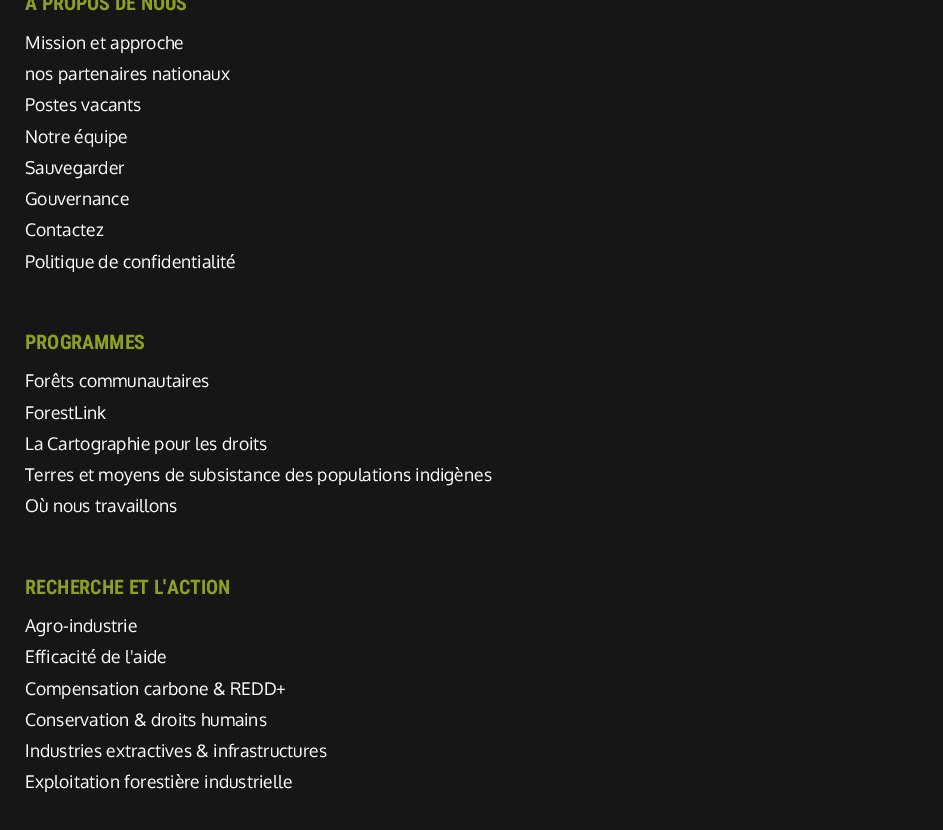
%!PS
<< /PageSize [943 830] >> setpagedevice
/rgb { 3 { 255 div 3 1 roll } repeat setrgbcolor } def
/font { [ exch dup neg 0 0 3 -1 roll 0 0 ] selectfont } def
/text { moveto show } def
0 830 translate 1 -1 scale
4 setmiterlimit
22 22 22 rgb
0 0 943 830 rectfill
/RobotoCondensed-Bold 20 font
140 161 34 rgb
(A PROPOS DE NOUS) 25 10 text
/Oxygen-Regular 17.5 font
255 255 255 rgb
(Mission et approche) 25 49 text
(nos partenaires nationaux) 25 80 text
(Postes vacants) 25 111 text
(Notre équipe) 25 143 text
(Sauvegarder) 25 174 text
(Gouvernance) 25 205 text
(Contactez) 25 236 text
(Politique de confidentialité) 25 268 text
/RobotoCondensed-Bold 20 font
140 161 34 rgb
(PROGRAMMES) 25 349 text
/Oxygen-Regular 17.5 font
255 255 255 rgb
(Forêts communautaires) 25 387 text
(ForestLink) 25 419 text
(La Cartographie pour les droits) 25 450 text
(Terres et moyens de subsistance des populations indigènes) 25 481 text
(Où nous travaillons) 25 512 text
/RobotoCondensed-Bold 20 font
140 161 34 rgb
(RECHERCHE ET L'ACTION) 25 594 text
/Oxygen-Regular 17.5 font
255 255 255 rgb
(Agro-industrie) 25 632 text
(Efficacité de l'aide) 25 663 text
(Compensation carbone & REDD+) 25 695 text
(Conservation & droits humains) 25 726 text
(Industries extractives & infrastructures) 25 757 text
(Exploitation forestière industrielle) 25 788 text
showpage
